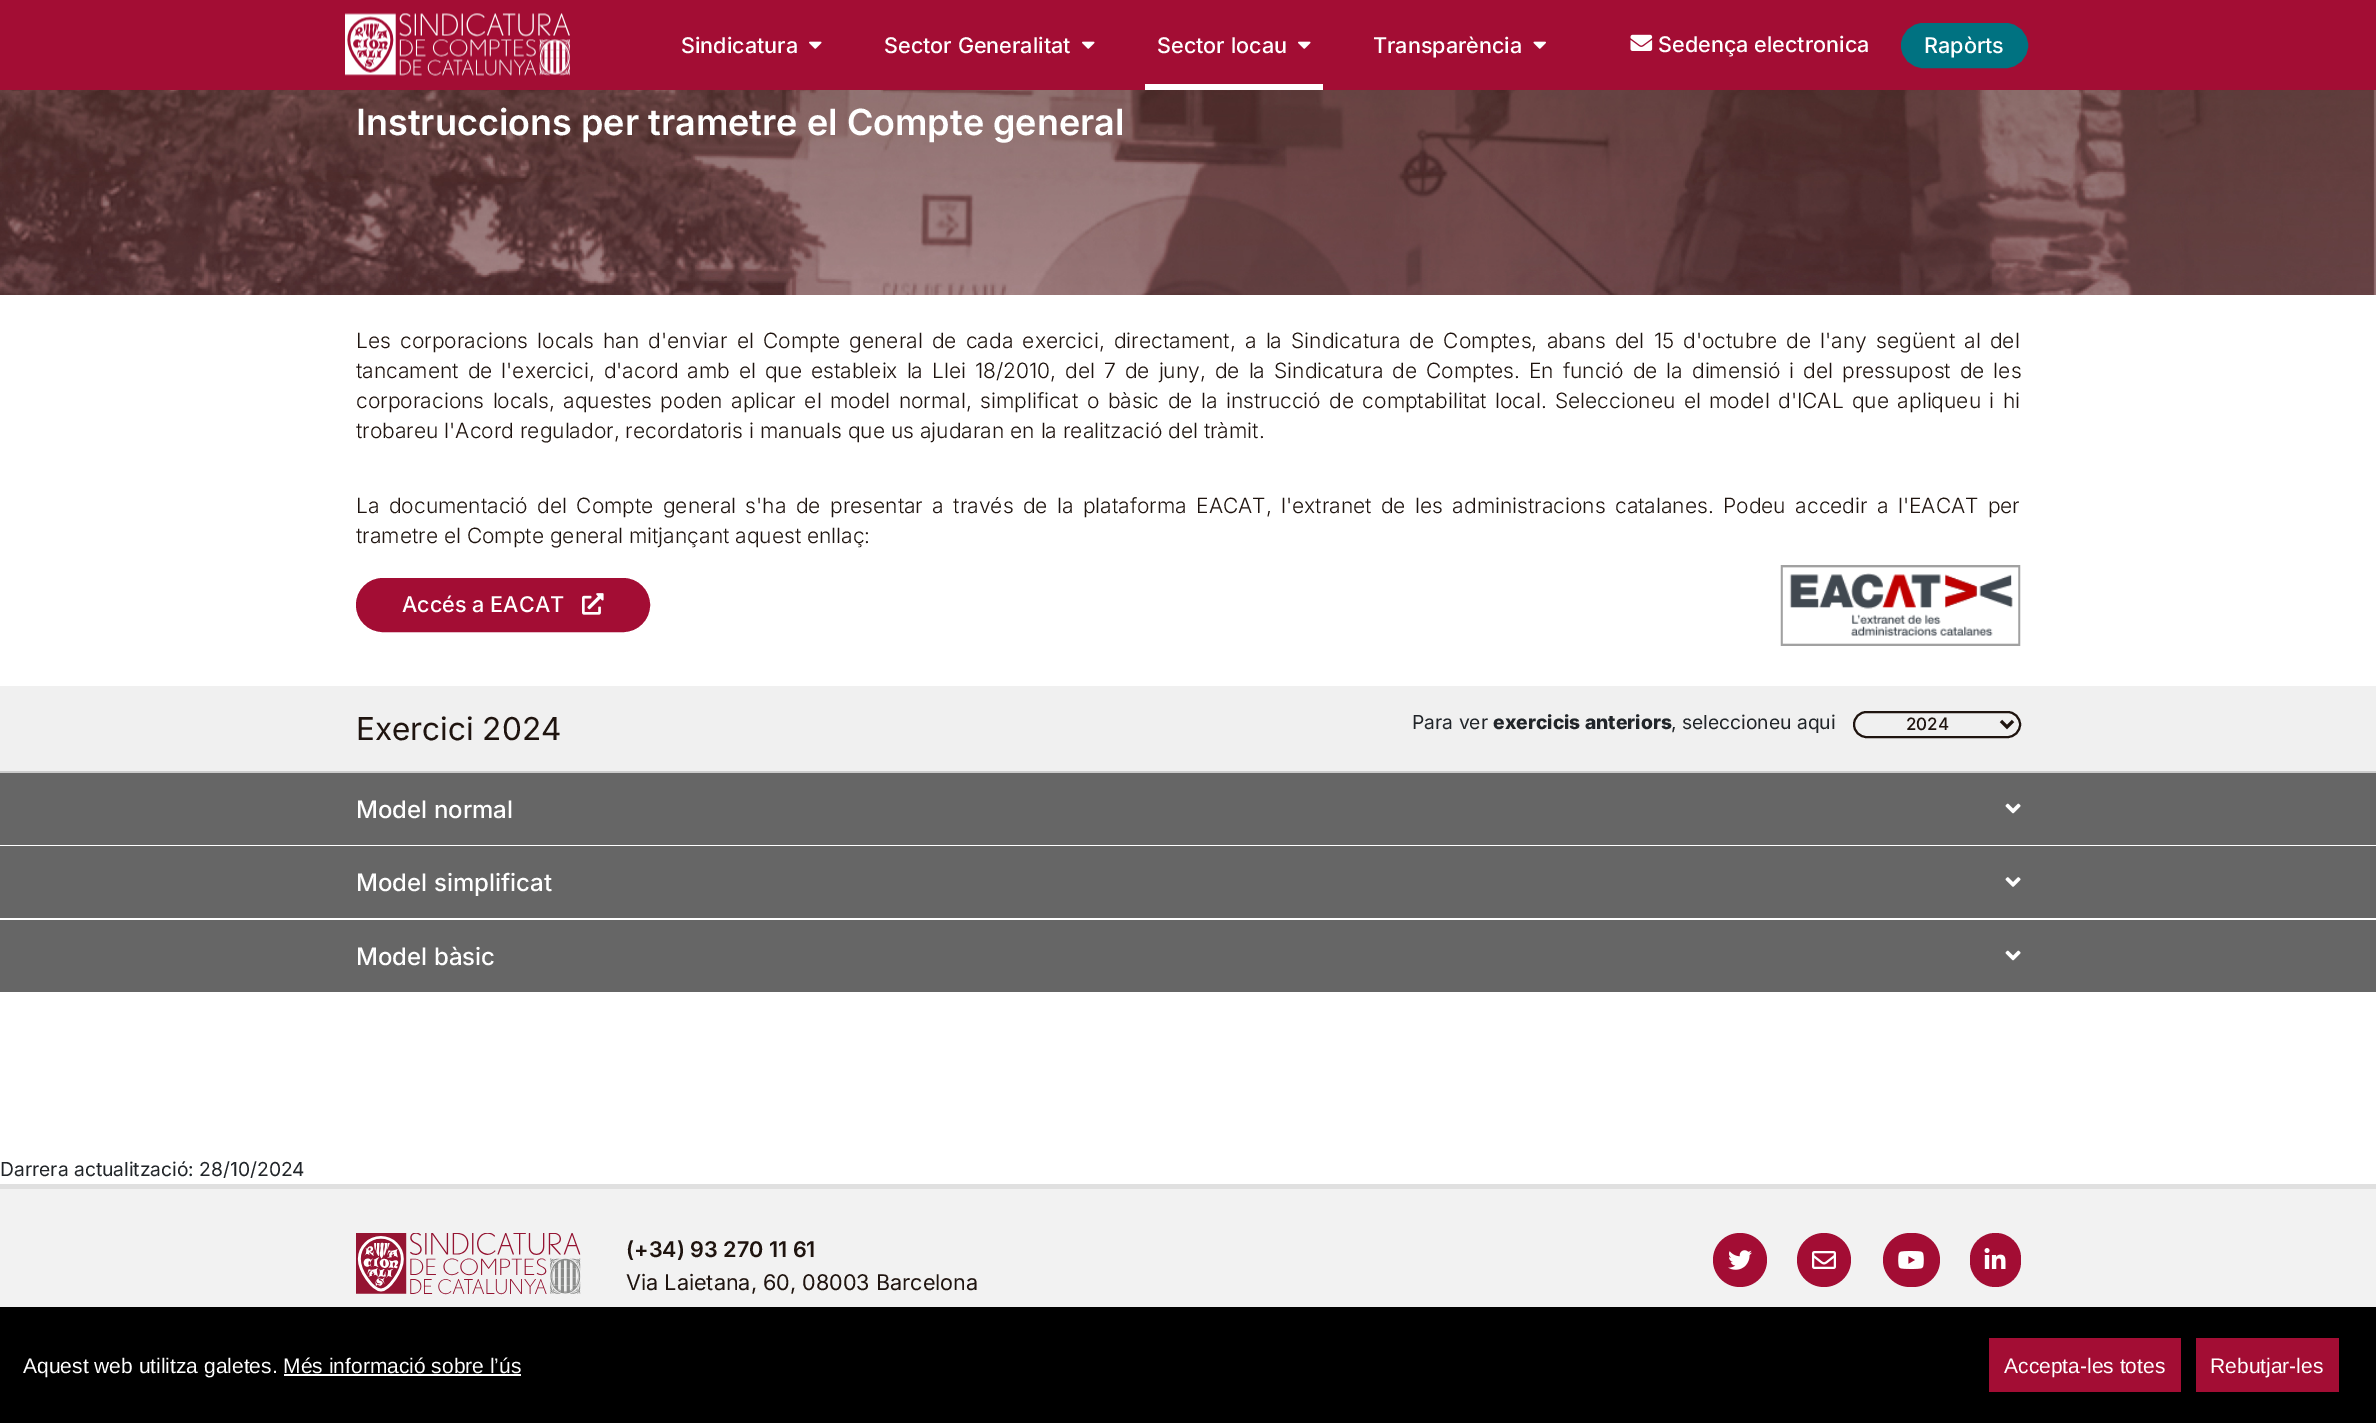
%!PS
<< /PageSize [2376 1423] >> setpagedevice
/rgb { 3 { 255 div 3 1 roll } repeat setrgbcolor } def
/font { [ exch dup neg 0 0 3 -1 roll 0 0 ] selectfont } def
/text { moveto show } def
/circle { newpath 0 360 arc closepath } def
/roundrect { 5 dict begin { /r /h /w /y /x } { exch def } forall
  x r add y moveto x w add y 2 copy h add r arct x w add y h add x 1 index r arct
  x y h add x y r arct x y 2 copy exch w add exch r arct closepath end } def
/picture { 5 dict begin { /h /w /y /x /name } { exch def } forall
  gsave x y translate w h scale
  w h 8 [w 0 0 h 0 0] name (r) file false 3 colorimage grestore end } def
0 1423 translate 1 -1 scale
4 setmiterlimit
255 255 255 rgb
0 0 2376 1423 rectfill
163 13 52 rgb
0 0 2376 90 rectfill
(img_01.rgb) 345 13 225 63 picture
(img_02.rgb) 809 41 13 8 picture
(img_02.rgb) 1082 41 13 8 picture
(img_02.rgb) 1298 41 13 8 picture
255 255 255 rgb
1145 84 178 6 rectfill
(img_03.rgb) 1533 41 13 8 picture
(img_04.rgb) 1630 34 23 17 picture
0 114 129 rgb
1902 24 125 43 21.5 roundrect gsave fill grestore
2 setlinewidth
stroke
(img_05.rgb) 0 90 2376 205 picture
163 13 52 rgb
357 579 292 52 26 roundrect gsave fill grestore
stroke
(img_06.rgb) 582 593 22 22 picture
(img_07.rgb) 1780 565 241 81 picture
240 240 240 rgb
0 686 2376 85 rectfill
204 204 204 rgb
0 771 2376 2 rectfill
31 20 15 rgb
1854 712 166 25 12.5 roundrect stroke
3 setlinewidth
2001 721 moveto 6 6 rlineto 6 -6 rlineto stroke
102 102 102 rgb
0 773 2376 72 rectfill
(img_08.rgb) 2005 803 16 11 picture
0 846 2376 72 rectfill
(img_09.rgb) 2005 877 16 10 picture
0 920 2376 72 rectfill
(img_08.rgb) 2005 950 16 11 picture
242 242 242 rgb
0 1189 2376 118 rectfill
224 224 224 rgb
0 1184 2376 5 rectfill
(img_10.rgb) 356 1233 225 62 picture
163 13 52 rgb
1740 1260 27 circle fill
(img_11.rgb) 1728 1250 24 20 picture
1824 1260 27 circle fill
(img_12.rgb) 1812 1251 24 18 picture
1883 1233 57 54 27 roundrect fill
(img_13.rgb) 1898 1251 26 18 picture
1970 1233 51 54 25.5 roundrect fill
(img_14.rgb) 1984 1248 22 21 picture
0 0 0 rgb
0 1307 2376 116 rectfill
255 255 255 rgb
284 1374 237 2 rectfill
163 13 52 rgb
1989 1338 192 54 rectfill
2196 1338 143 54 rectfill
/Inter-Medium 21.6 font
255 255 255 rgb
(Sindicatura) 681 53 text
(Sector Generalitat) 884 53 text
(Sector locau) 1157 53 text
(Transparència) 1373 53 text
(Sedença electronica) 1658 52 text
(Rapòrts) 1924 53 text
/Inter-SemiBold 36 font
(Instruccions per trametre el Compte general) 356 135 text
/Inter-Light 21 font
31 20 15 rgb
356 348 moveto 3.3 0 32 (Les corporacions locals han d'enviar el Compte general de cada exercici, directament, a la Sindicatura de Comptes, abans del 15 d'octubre de l'any següent al del) widthshow
356 378 moveto 3.1 0 32 (tancament de l'exercici, d'acord amb el que estableix la Llei 18/2010, del 7 de juny, de la Sindicatura de Comptes. En funció de la dimensió i del pressupost de les) widthshow
356 408 moveto 2.5 0 32 (corporacions locals, aquestes poden aplicar el model normal, simplificat o bàsic de la instrucció de comptabilitat local. Seleccioneu el model d'ICAL que apliqueu i hi) widthshow
(trobareu l'Acord regulador, recordatoris i manuals que us ajudaran en la realització del tràmit.) 356 438 text
356 513 moveto 3.5 0 32 (La documentació del Compte general s'ha de presentar a través de la plataforma EACAT, l'extranet de les administracions catalanes. Podeu accedir a l'EACAT per) widthshow
(trametre el Compte general mitjançant aquest enllaç:) 356 543 text
/Inter-Medium 21.6 font
255 255 255 rgb
(Accés a EACAT) 402 612 text
/Inter-Regular 31.5 font
31 20 15 rgb
(Exercici 2024) 356 740 text
/Inter-Regular 19.25 font
33 37 41 rgb
(Para ver) 1412 729 text
/Inter-ExtraBold 19.25 font
(exercicis anteriors) 1493 729 text
/Inter-Regular 19.25 font
(, seleccioneu aqui) 1671 729 text
/Inter-Medium 17 font
31 20 15 rgb
(2024) 1906 730 text
/Inter-Medium 24 font
255 255 255 rgb
(Model normal) 356 818 text
(Model simplificat) 356 891 text
(Model bàsic) 356 965 text
/Inter-Regular 19.25 font
33 37 41 rgb
(Darrera actualització: 28/10/2024) 0 1176 text
/Inter-SemiBold 21.6 font
31 20 15 rgb
(\(+34\) 93 270 11 61) 626 1257 text
/Inter-Regular 21.6 font
(Via Laietana, 60, 08003 Barcelona) 626 1290 text
/LiberationSans-Regular 21 font
255 255 255 rgb
(Aquest web utilitza galetes. Més informació sobre l’ús) 23 1373 text
(Accepta-les totes) 2004 1373 text
(Rebutjar-les) 2210 1373 text
showpage
